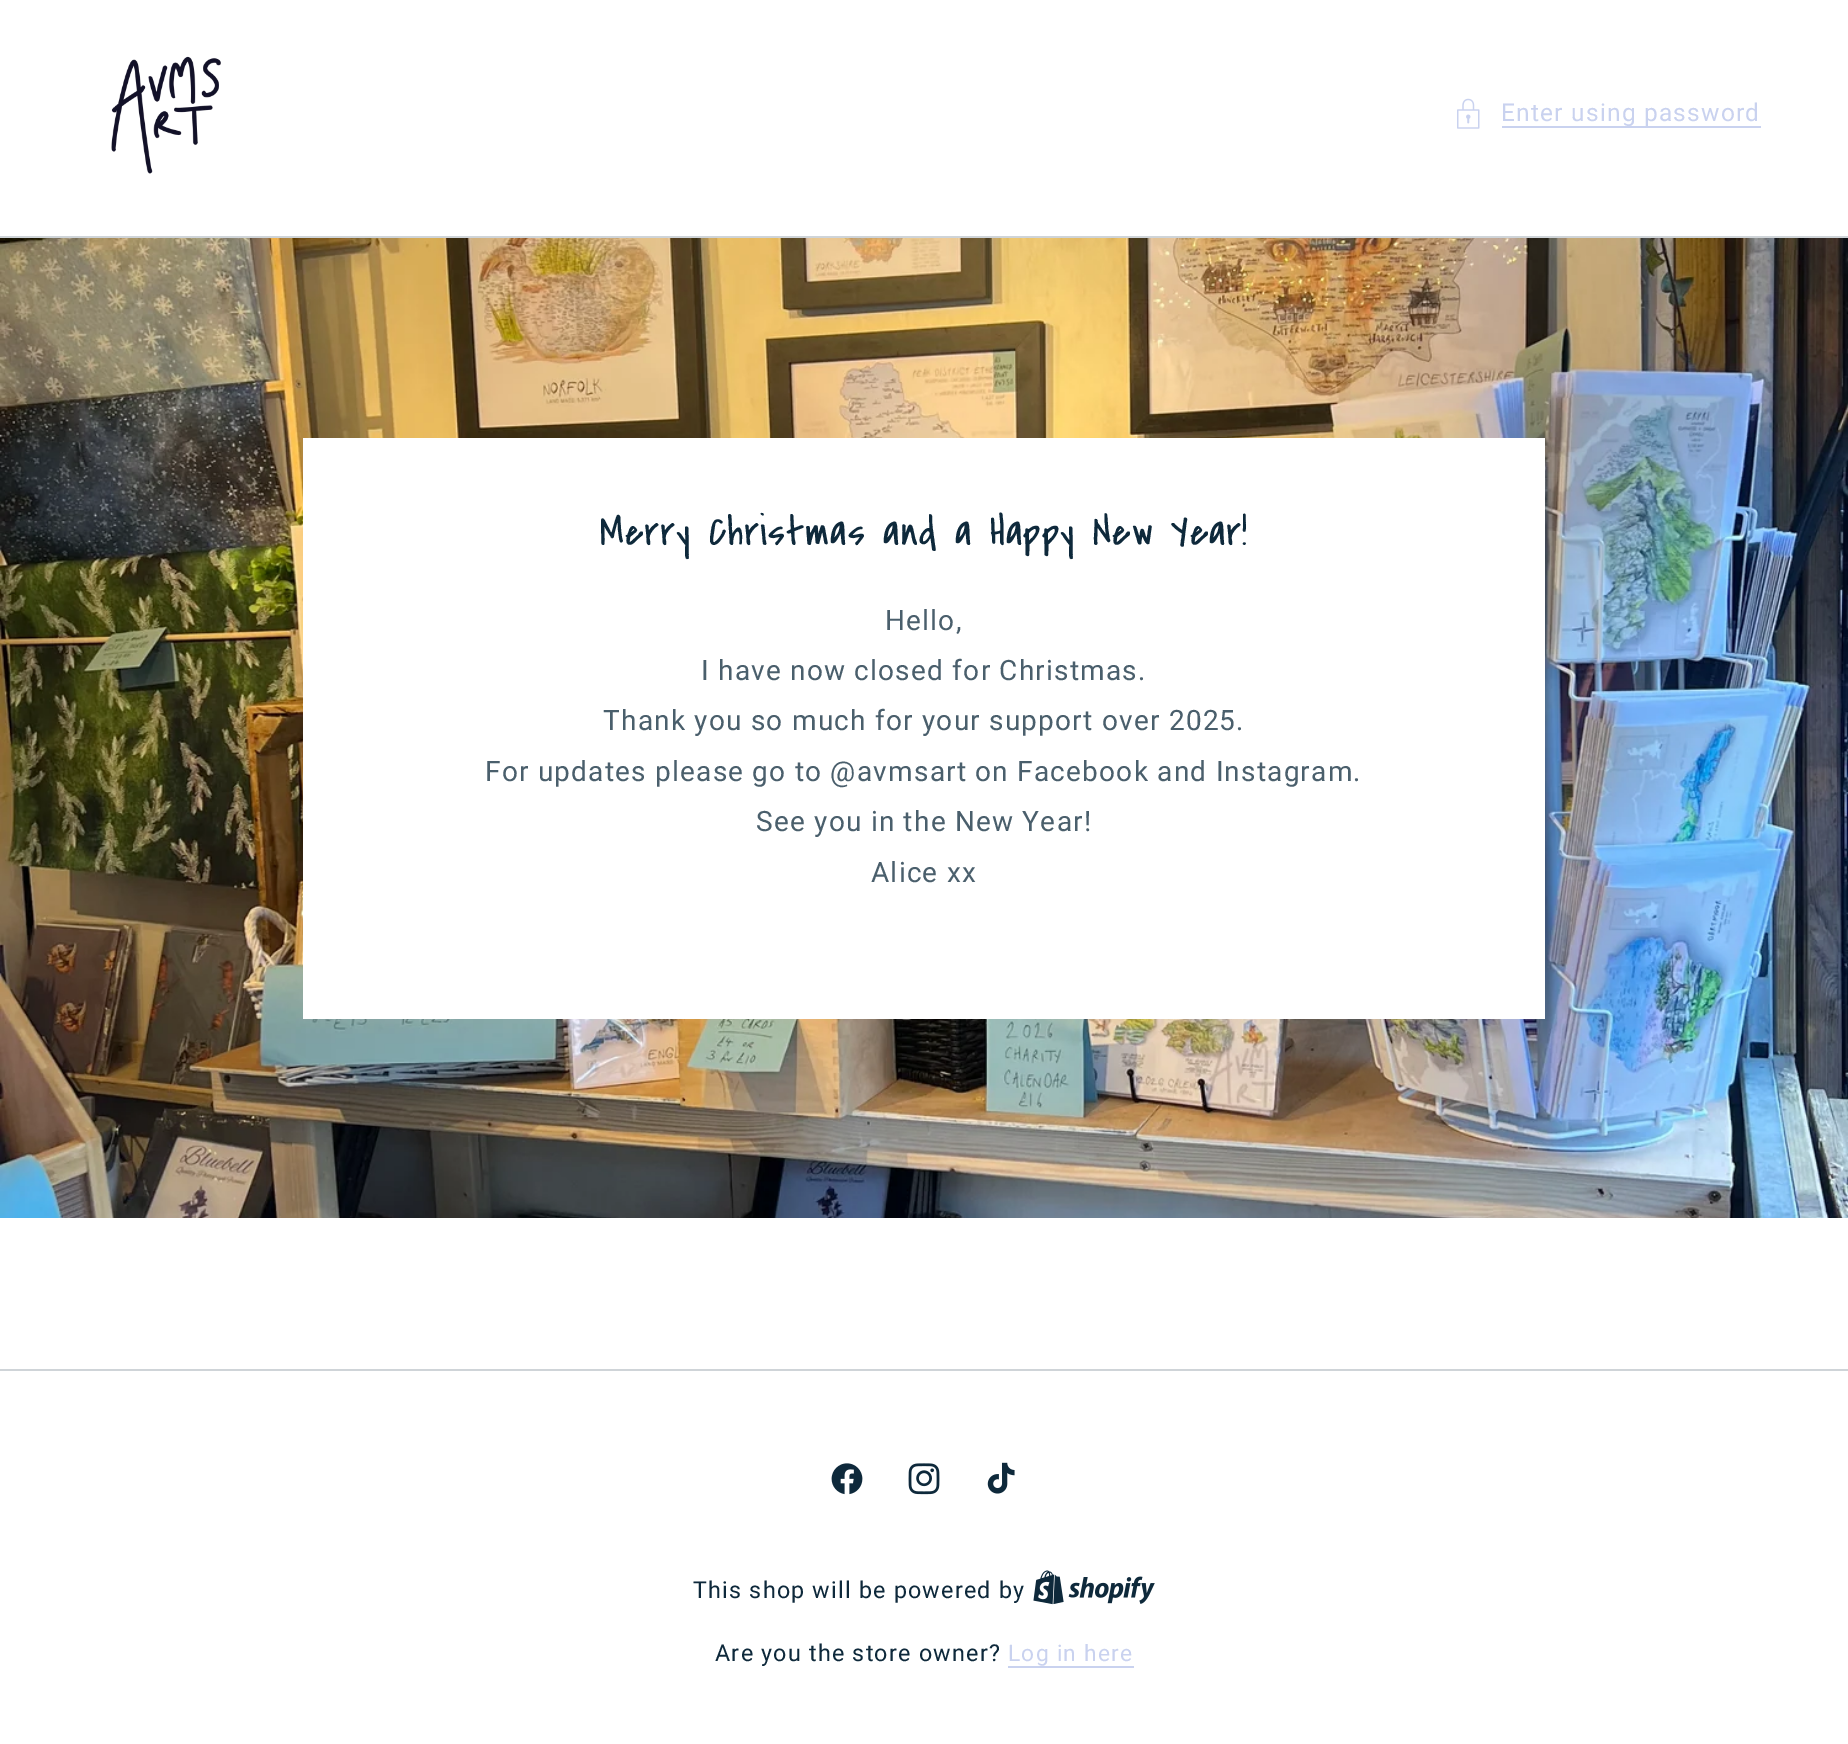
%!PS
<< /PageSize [1848 1744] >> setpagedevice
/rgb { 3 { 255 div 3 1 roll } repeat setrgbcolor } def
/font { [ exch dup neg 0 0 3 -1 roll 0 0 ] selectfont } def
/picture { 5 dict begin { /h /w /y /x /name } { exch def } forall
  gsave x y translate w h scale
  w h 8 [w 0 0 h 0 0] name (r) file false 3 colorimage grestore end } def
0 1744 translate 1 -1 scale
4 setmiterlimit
255 255 255 rgb
0 0 1848 1744 rectfill
(img_01.rgb) 111 56 110 118 picture
(img_02.rgb) 1457 98 23 31 picture
201 210 239 rgb
1502 126 259 2 rectfill
207 212 216 rgb
0 236 1848 2 rectfill
(img_03.rgb) 0 238 1848 980 picture
255 255 255 rgb
303 438 1242 581 rectfill
207 212 216 rgb
0 1369 1848 2 rectfill
(img_04.rgb) 831 1463 32 32 picture
(img_05.rgb) 908 1463 32 32 picture
(img_06.rgb) 987 1462 28 32 picture
(img_07.rgb) 1033 1570 122 35 picture
201 210 239 rgb
1008 1666 126 2 rectfill
/Roboto-Regular 24.5 font
1501 121 moveto 1.22 0 (Enter using password) ashow
/CoveredByYourGrace-Regular 42 font
14 41 59 rgb
600 545 moveto 1.05 0 (Merry Christmas and a Happy New Year!) ashow
/Roboto-Regular 28 font
74 95 108 rgb
885 630 moveto 1.22 0 (Hello,) ashow
701 680 moveto 1.22 0 (I have now closed for Christmas.) ashow
603 730 moveto 1.22 0 (Thank you so much for your support over 2025.) ashow
485 781 moveto 1.22 0 (For updates please go to @avmsart on Facebook and Instagram.) ashow
756 831 moveto 1.22 0 (See you in the New Year!) ashow
871 882 moveto 1.22 0 (Alice xx) ashow
/Roboto-Regular 23.3 font
14 41 59 rgb
693 1598 moveto 1.22 0 (This shop will be powered by) ashow
715 1661 moveto 1.22 0 (Are you the store owner?) ashow
/Roboto-Regular 22.75 font
201 210 239 rgb
1008 1661 moveto 1.22 0 (Log in here) ashow
showpage
